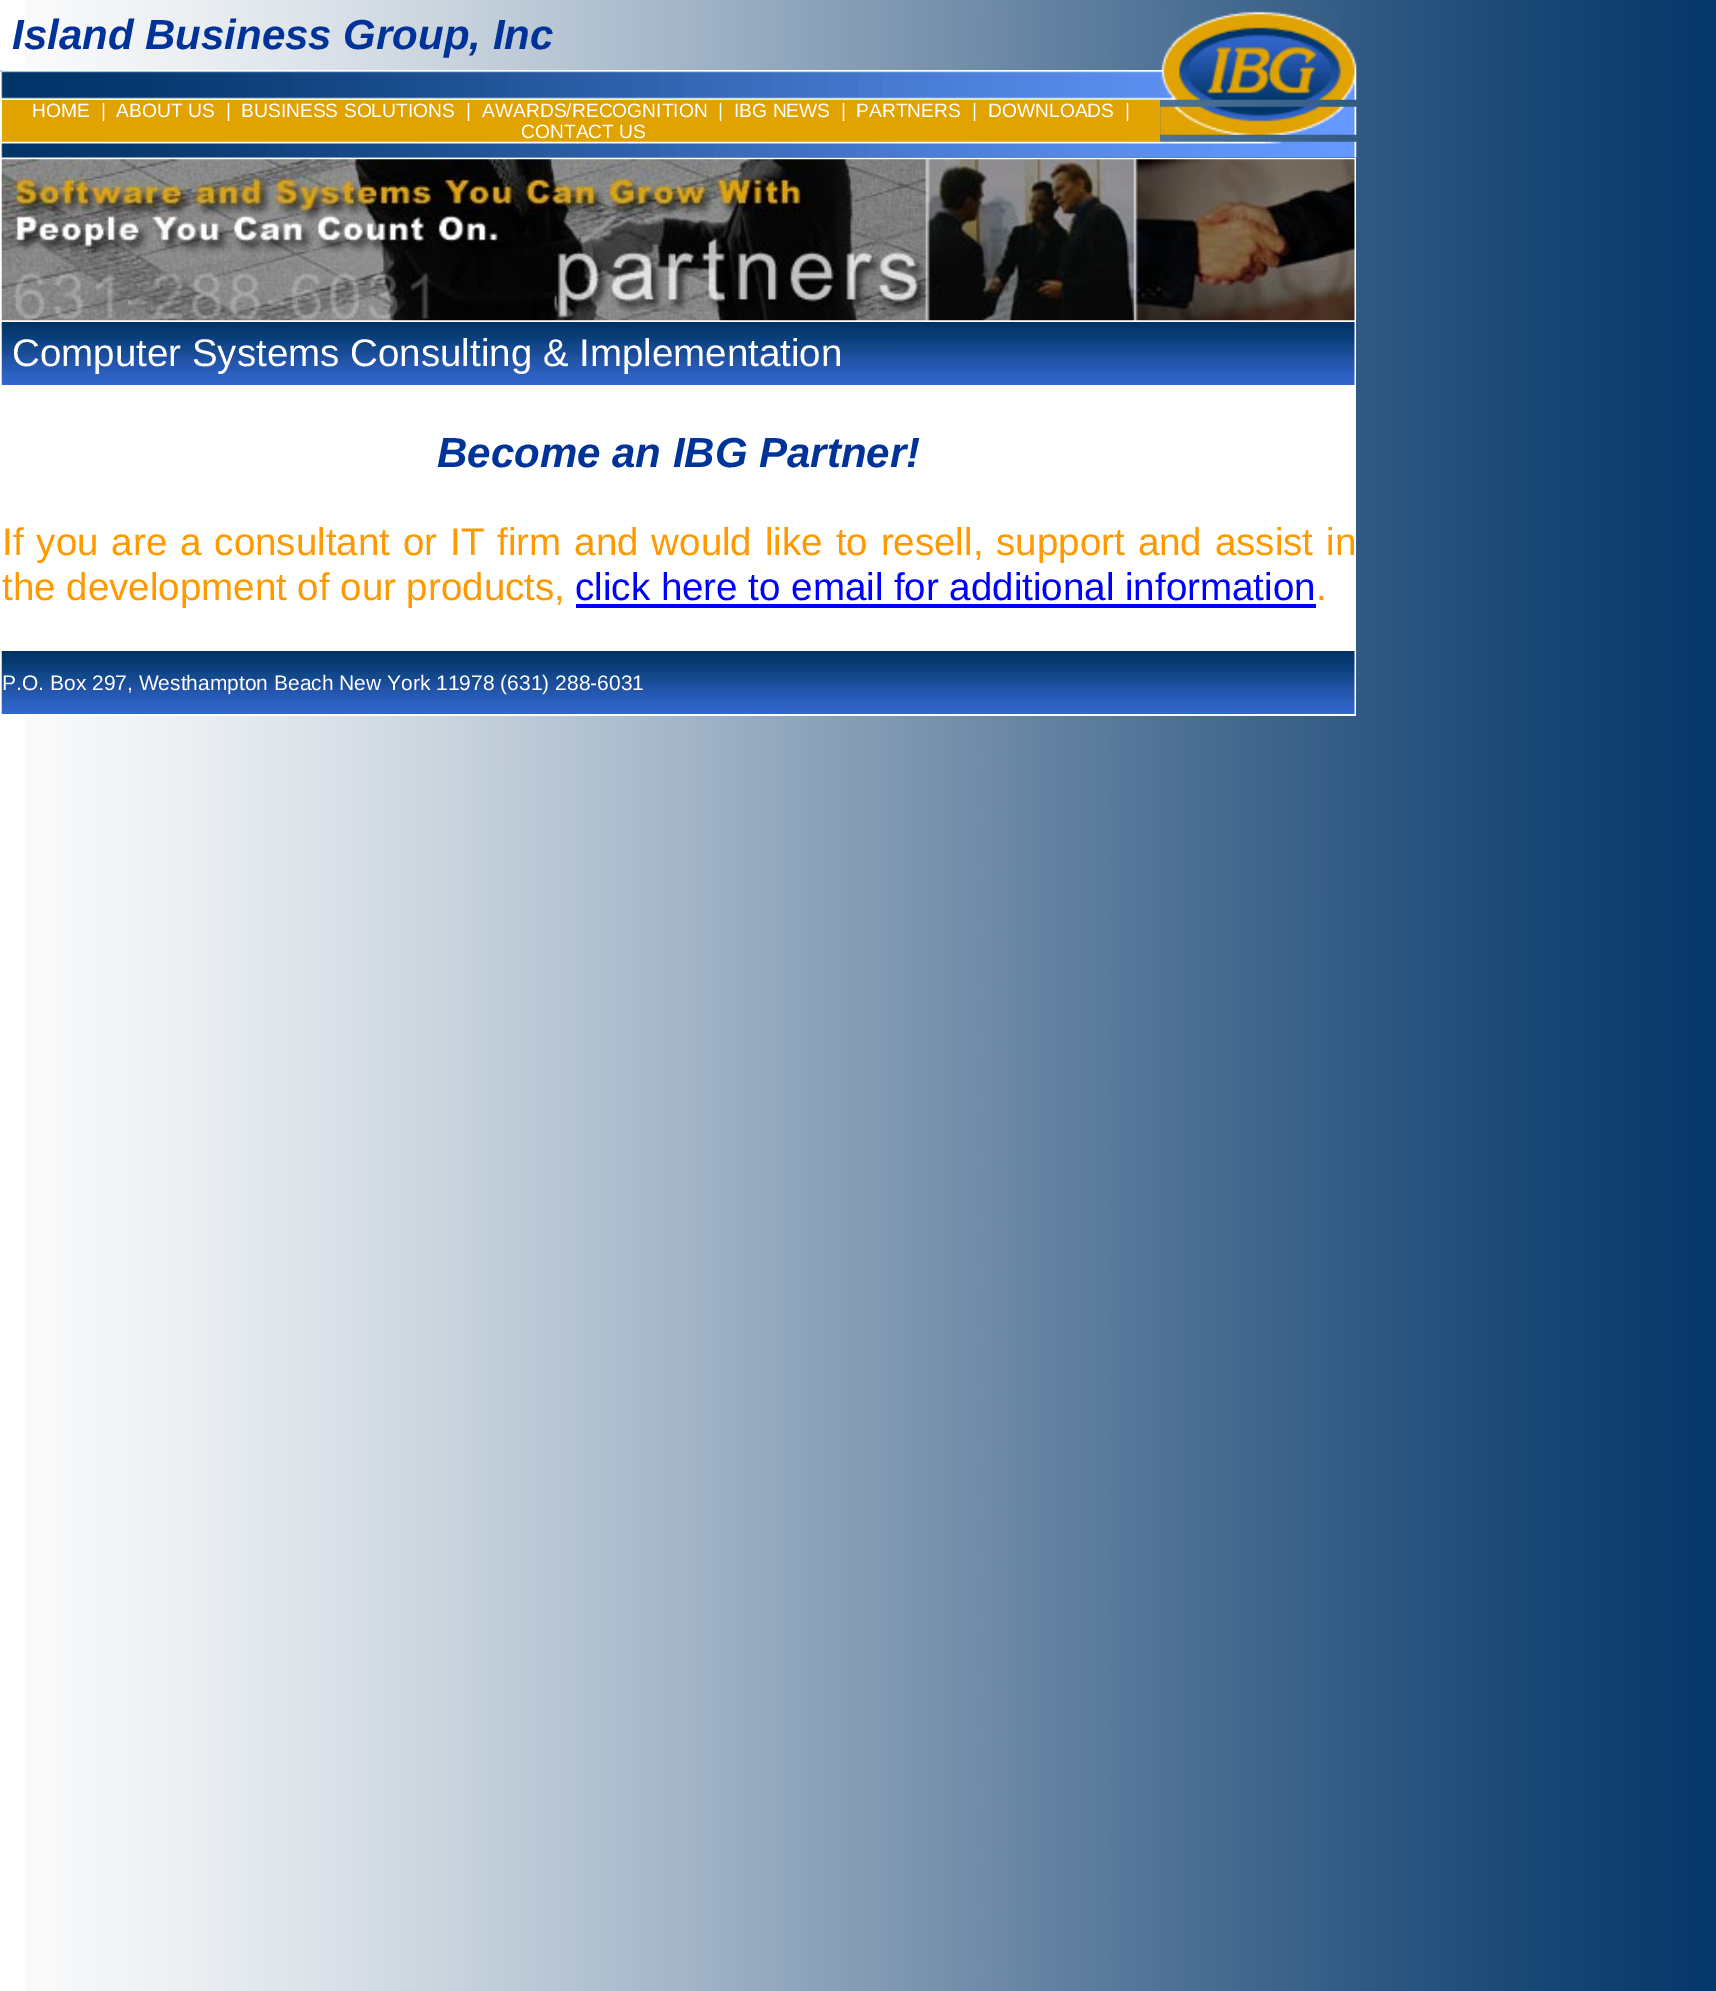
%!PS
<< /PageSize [1716 1991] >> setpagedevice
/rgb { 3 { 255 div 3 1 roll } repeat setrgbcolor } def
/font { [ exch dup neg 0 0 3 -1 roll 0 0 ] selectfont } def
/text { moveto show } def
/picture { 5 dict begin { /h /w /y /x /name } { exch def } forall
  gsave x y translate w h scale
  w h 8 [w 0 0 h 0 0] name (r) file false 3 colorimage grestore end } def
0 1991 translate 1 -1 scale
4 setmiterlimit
255 255 255 rgb
0 0 1716 1991 rectfill
(img_01.rgb) 25 0 1691 1991 picture
(img_02.rgb) 1161 11 196 59 picture
(img_03.rgb) 0 70 1357 30 picture
224 163 2 rgb
2 100 1158 42 rectfill
(img_04.rgb) 1160 106 197 29 picture
(img_05.rgb) 1 141 1356 17 picture
255 255 255 rgb
25 158 1331 558 rectfill
(img_06.rgb) 1 159 1354 162 picture
(img_07.rgb) 1 322 1354 63 picture
0 0 255 rgb
576 604 740 4 rectfill
(img_08.rgb) 1 651 1354 63 picture
/LiberationSans-BoldItalic 42 font
0 51 153 rgb
(Island Business Group, Inc) 12 49 text
/LiberationSans-Regular 19.25 font
255 255 255 rgb
(HOME) 32 117 text
(|) 101 117 text
(ABOUT US) 116 117 text
(|) 226 117 text
(BUSINESS SOLUTIONS) 241 117 text
(|) 466 117 text
(AWARDS/RECOGNITION) 482 117 text
(|) 718 117 text
(IBG NEWS) 734 117 text
(|) 841 117 text
(PARTNERS) 856 117 text
(|) 972 117 text
(DOWNLOADS) 988 117 text
(|) 1125 117 text
(CONTACT US) 521 138 text
/LiberationSans-Regular 38.5 font
(Computer Systems Consulting & Implementation) 12 366 text
/LiberationSans-BoldItalic 42 font
0 51 153 rgb
(Become an IBG Partner!) 437 467 text
/LiberationSans-Regular 38.5 font
255 153 0 rgb
2 555 moveto 2.25 0 32 (If you are a consultant or IT firm and would like to resell, support and assist in) widthshow
(the development of our products,) 2 600 text
0 0 255 rgb
(click here to email for additional information) 575 600 text
255 153 0 rgb
(.) 1316 600 text
/LiberationSans-Regular 21 font
255 255 255 rgb
(P.O. Box 297, Westhampton Beach New York 11978 \(631\) 288-6031) 2 690 text
showpage
